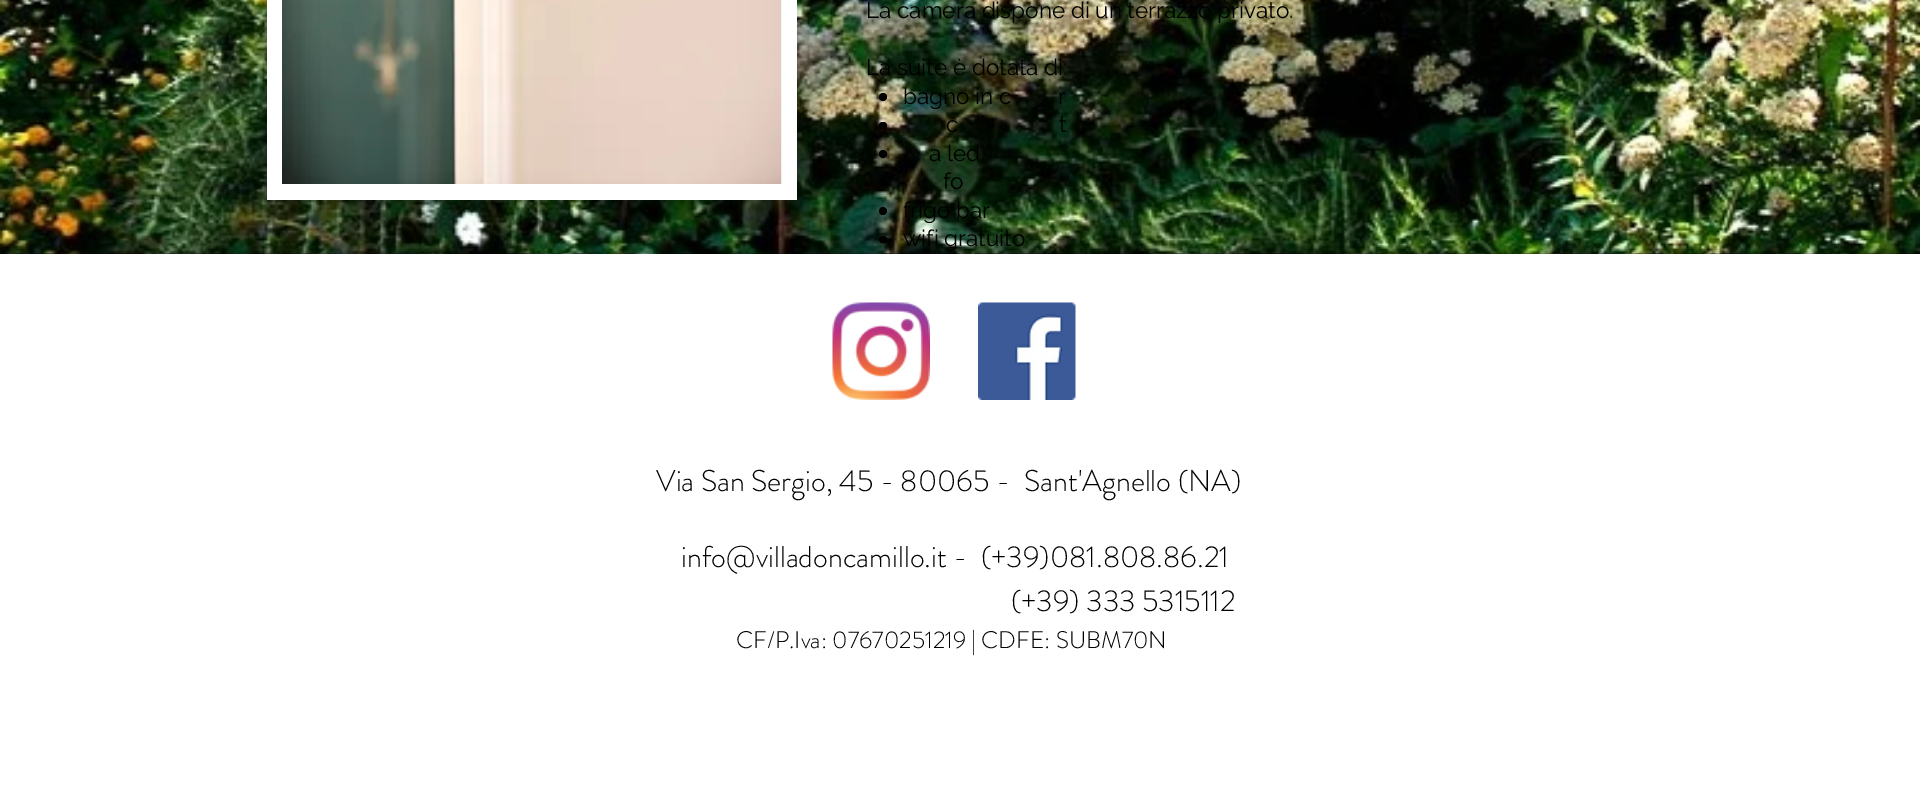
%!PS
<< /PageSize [1920 796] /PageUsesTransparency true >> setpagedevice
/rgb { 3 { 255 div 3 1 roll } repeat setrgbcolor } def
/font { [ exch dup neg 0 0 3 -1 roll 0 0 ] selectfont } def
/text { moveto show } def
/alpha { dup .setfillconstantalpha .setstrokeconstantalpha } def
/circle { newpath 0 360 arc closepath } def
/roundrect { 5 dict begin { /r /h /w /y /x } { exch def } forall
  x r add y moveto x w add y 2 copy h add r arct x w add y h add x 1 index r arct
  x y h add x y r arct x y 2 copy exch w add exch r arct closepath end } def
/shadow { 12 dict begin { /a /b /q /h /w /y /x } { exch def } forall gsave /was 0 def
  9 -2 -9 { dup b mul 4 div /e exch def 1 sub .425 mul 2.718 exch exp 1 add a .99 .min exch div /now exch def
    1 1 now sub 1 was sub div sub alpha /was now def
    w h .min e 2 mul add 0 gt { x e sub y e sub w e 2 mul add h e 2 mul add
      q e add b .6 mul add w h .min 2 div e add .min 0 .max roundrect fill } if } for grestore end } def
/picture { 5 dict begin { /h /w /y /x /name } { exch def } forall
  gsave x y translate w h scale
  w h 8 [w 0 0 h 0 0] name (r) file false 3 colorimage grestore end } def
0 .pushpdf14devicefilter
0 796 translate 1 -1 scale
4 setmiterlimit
255 255 255 rgb
0 0 1920 796 rectfill
(img_01.rgb) 0 0 1920 254 picture
0 0 0 rgb
267 -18 530 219 0 6 0.3 shadow
255 255 255 rgb
267 0 530 200 rectfill
(img_02.rgb) 282 0 500 184 picture
0 0 0 rgb
883 97 4 circle fill
879 122 8 7 3.5 roundrect fill
883 154 4 circle fill
879 179 8 7 3.5 roundrect fill
883 211 4 circle fill
879 236 8 7 3.5 roundrect fill
0 254 1920 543 0 4 0.7 shadow
255 255 255 rgb
0 254 1920 542 rectfill
(img_03.rgb) 832 302 98 98 picture
(img_04.rgb) 978 302 98 98 picture
/Raleway-Regular 22.5 font
0 0 0 rgb
(La camera dispone di un terrazzo privato.) 866 18 text
(La suite è dotata di:) 866 75 text
(bagno in c) 903 104 text
(r) 1058 104 text
(c) 946 132 text
(t) 1059 132 text
(a led) 929 161 text
(fo) 943 189 text
(frigo bar) 903 218 text
(wifi gratuito) 903 246 text
/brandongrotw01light-Light 30 font
(Via San Sergio, 45 - 80065 -) 656 491 text
(Sant'Agnello \(NA\)) 1024 491 text
(info@villadoncamillo.it -) 681 567 text
(\(+39\)081.808.86.21) 981 567 text
(\(+39\) 333 5315112) 1011 611 text
/brandongrotw01light-Light 24 font
(CF/P.Iva: 07670251219 | CDFE: SUBM70N) 736 648 text
.poppdf14devicefilter showpage
